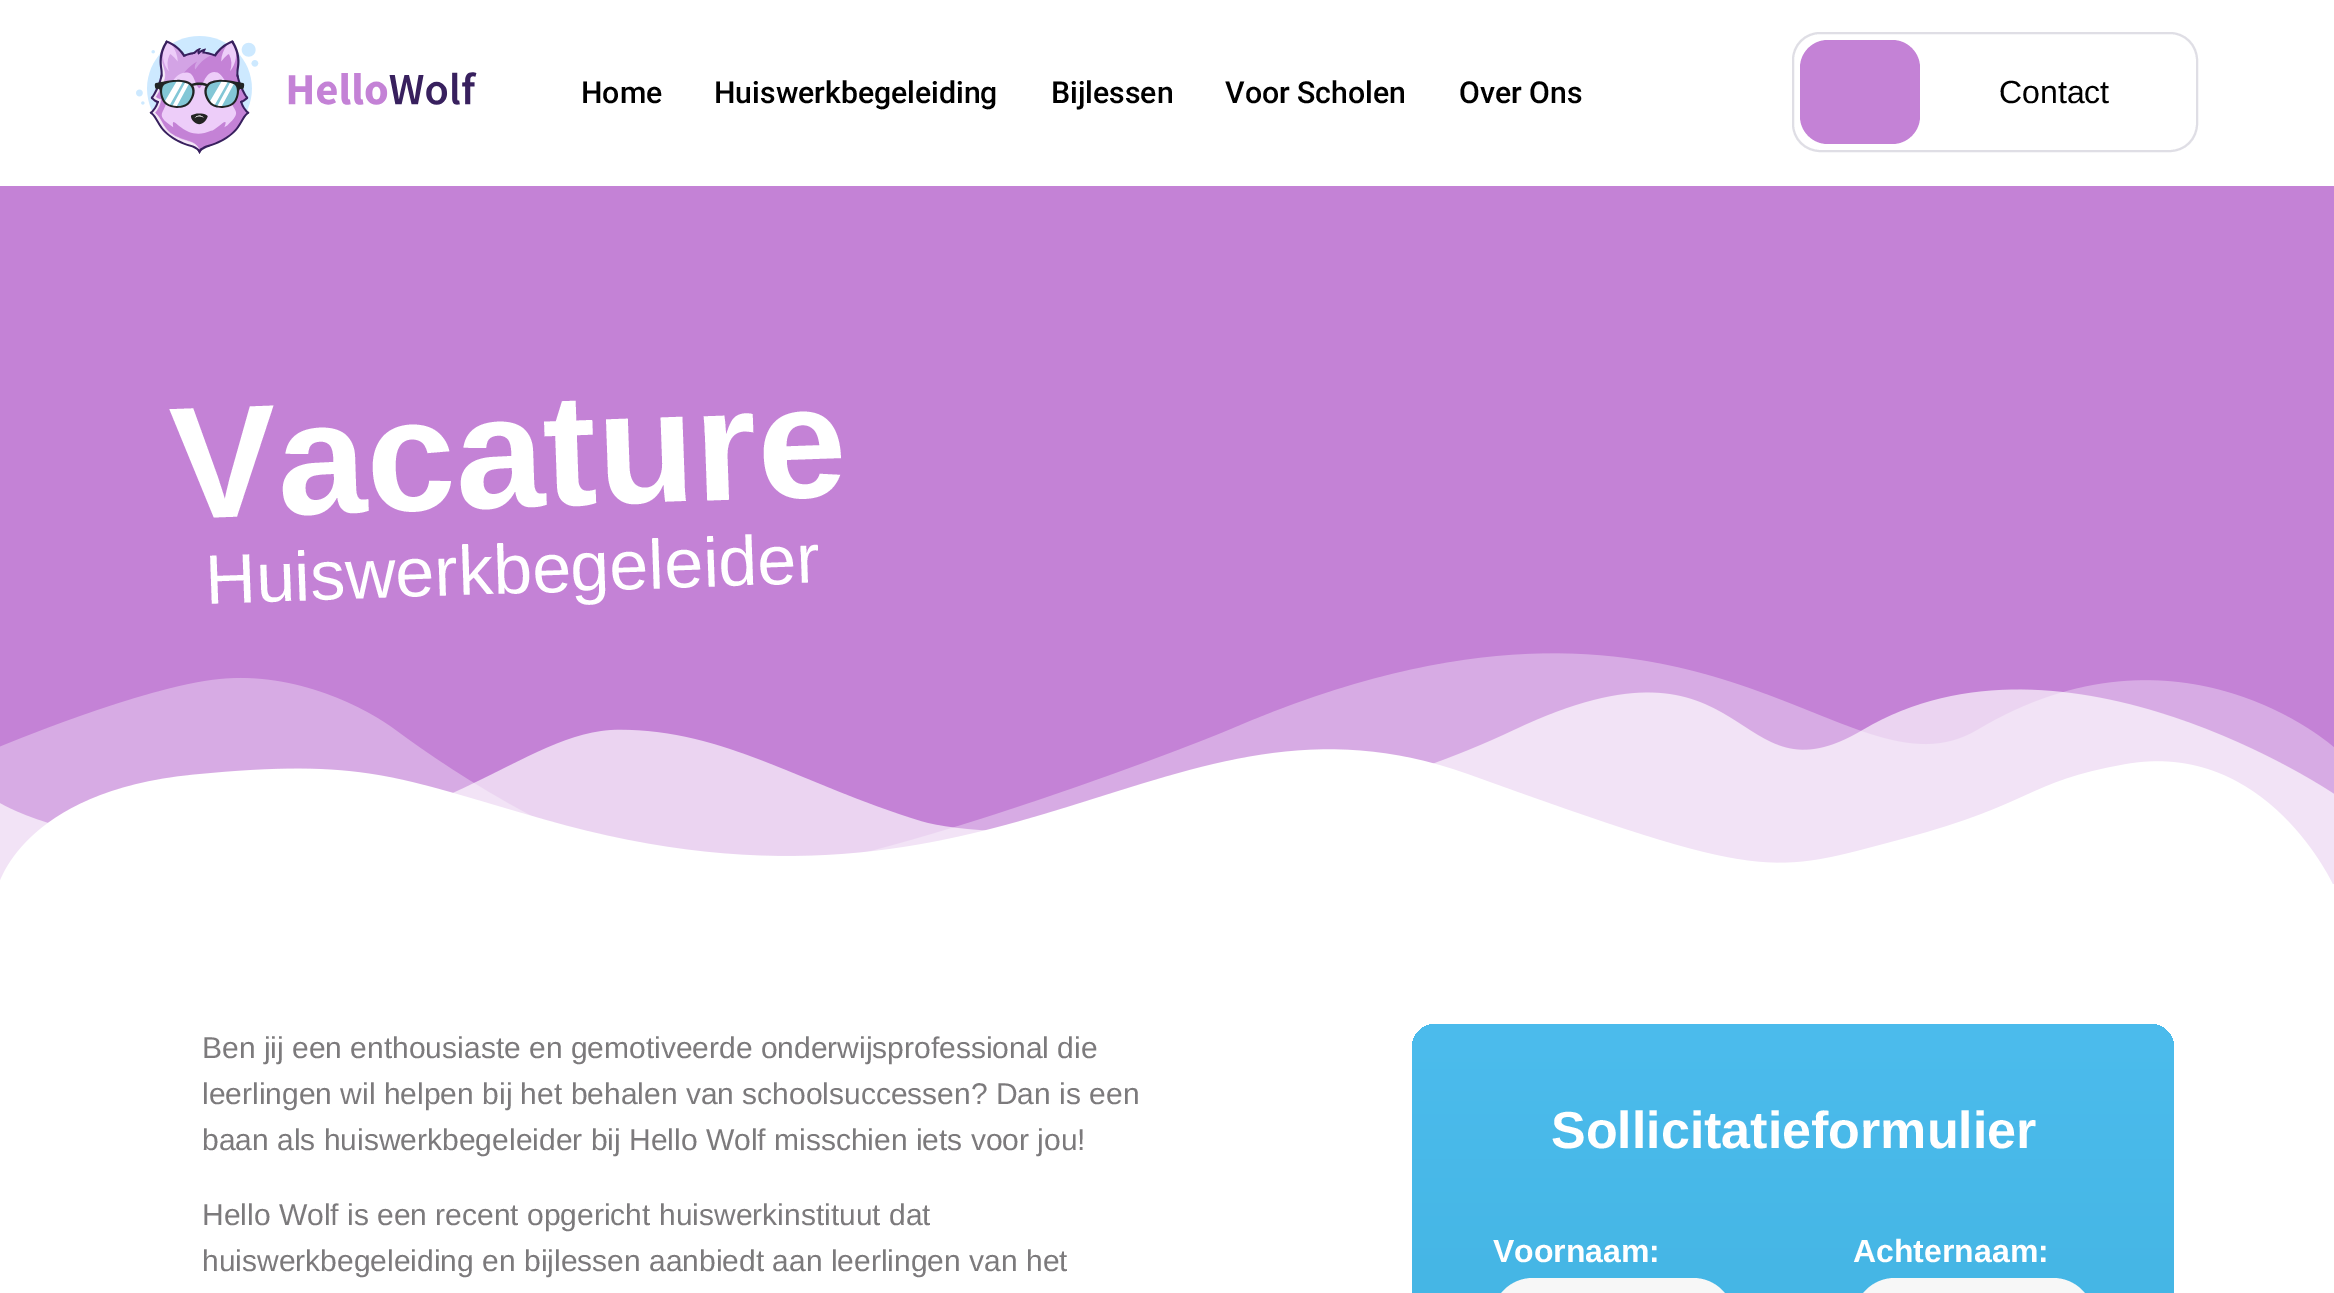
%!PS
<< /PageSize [2334 1293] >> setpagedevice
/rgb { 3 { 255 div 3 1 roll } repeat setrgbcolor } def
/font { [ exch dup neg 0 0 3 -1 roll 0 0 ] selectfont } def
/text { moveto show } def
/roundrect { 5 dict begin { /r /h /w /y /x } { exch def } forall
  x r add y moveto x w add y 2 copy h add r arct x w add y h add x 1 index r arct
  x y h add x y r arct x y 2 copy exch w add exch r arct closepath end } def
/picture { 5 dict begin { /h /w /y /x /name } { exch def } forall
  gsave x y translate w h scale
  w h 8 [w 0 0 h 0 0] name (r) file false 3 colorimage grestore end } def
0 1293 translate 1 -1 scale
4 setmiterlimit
255 255 255 rgb
0 0 2334 1293 rectfill
(img_01.rgb) 136 36 341 118 picture
223 222 229 rgb
2 setlinewidth
1793 33 404 118 27 roundrect stroke
196 130 214 rgb
1800 40 120 104 28 roundrect fill
0 186 2334 698 rectfill
(img_02.rgb) 0 653 2334 231 picture
gsave 1412 1024 762 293 24 roundrect clip newpath
<< /ShadingType 2 /ColorSpace /DeviceRGB /Coords [1793 1024 1793 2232] /Extend [true true] /Function << /FunctionType 2 /Domain [0 1] /C0 [0.298 0.737 0.929] /C1 [0.169 0.627 0.788] /N 1 >> >> shfill grestore
247 247 247 rgb
1492 1278 242 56 41 roundrect fill
1854 1278 240 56 41 roundrect fill
/Roboto-Medium 30.25 font
0 0 0 rgb
(Home) 581 103 text
(Huiswerkbegeleiding) 714 103 text
(Bijlessen) 1051 103 text
(Voor Scholen) 1225 103 text
(Over Ons) 1459 103 text
/LiberationSans-Regular 32 font
(Contact) 1999 103 text
/LiberationSans-Bold 160 font
255 255 255 rgb
gsave 172 519 translate -2 rotate 0 0 moveto (Vacature) show grestore
/LiberationSans-Regular 70 font
gsave 206 604 translate -2 rotate 0 0 moveto (Huiswerkbegeleider) show grestore
/LiberationSans-Regular 30 font
124 122 124 rgb
(Ben jij een enthousiaste en gemotiveerde onderwijsprofessional die) 202 1058 text
(leerlingen wil helpen bij het behalen van schoolsuccessen? Dan is een) 202 1104 text
(baan als huiswerkbegeleider bij Hello Wolf misschien iets voor jou!) 202 1150 text
(Hello Wolf is een recent opgericht huiswerkinstituut dat) 202 1225 text
(huiswerkbegeleiding en bijlessen aanbiedt aan leerlingen van het) 202 1271 text
/LiberationSans-Bold 52 font
255 255 255 rgb
(Sollicitatieformulier) 1551 1148 text
/LiberationSans-Bold 32 font
(Voornaam:) 1493 1262 text
(Achternaam:) 1853 1262 text
showpage
